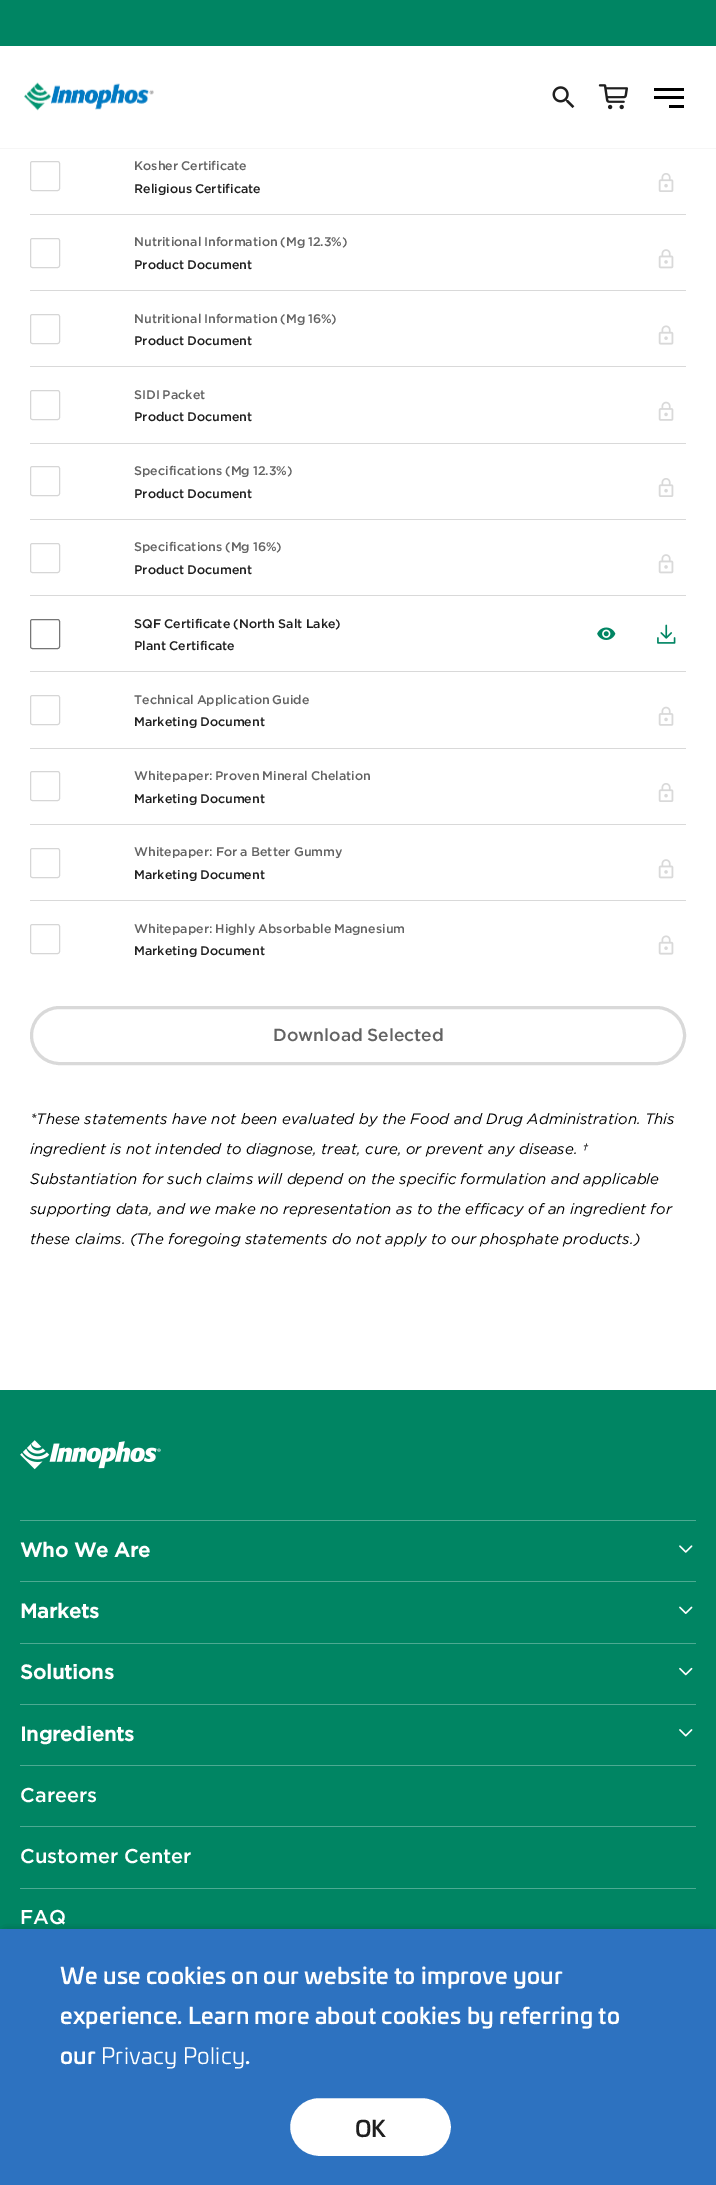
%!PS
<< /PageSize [716 2185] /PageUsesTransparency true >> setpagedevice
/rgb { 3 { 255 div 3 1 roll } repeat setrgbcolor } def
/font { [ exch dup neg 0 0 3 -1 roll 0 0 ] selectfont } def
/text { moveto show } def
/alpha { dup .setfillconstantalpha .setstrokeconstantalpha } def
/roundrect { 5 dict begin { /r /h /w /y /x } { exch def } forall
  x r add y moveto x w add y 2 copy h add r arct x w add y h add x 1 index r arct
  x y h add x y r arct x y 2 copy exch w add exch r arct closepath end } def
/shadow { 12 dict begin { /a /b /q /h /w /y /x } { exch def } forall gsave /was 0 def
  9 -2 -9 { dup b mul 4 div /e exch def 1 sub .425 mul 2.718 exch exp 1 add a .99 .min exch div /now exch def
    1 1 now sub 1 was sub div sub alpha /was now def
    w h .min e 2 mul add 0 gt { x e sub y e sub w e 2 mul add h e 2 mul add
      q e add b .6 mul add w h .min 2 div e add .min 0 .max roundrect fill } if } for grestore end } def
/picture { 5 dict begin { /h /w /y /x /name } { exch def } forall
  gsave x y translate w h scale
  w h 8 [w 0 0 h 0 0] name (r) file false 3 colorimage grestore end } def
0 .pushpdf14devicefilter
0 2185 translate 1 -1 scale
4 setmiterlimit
255 255 255 rgb
0 0 716 2185 rectfill
246 246 246 rgb
0 148 716 1 rectfill
0 133 99 rgb
0 0 716 46 rectfill
(img_01.rgb) 24 82 130 29 picture
(img_02.rgb) 552 86 23 22 picture
(img_03.rgb) 598 84 30 26 picture
0 0 0 rgb
654 88 30 3 rectfill
654 96 30 3 rectfill
669 105 15 3 rectfill
214 214 214 rgb
30.5 161.5 29 29 2 roundrect stroke
(img_04.rgb) 658 173 16 19 picture
217 217 217 rgb
30 214 656 1 rectfill
214 214 214 rgb
30.5 238.5 29 29 2 roundrect stroke
(img_05.rgb) 658 249 16 20 picture
217 217 217 rgb
30 290 656 1 rectfill
214 214 214 rgb
30.5 314.5 29 29 2 roundrect stroke
(img_06.rgb) 658 325 16 20 picture
217 217 217 rgb
30 366 656 1 rectfill
214 214 214 rgb
30.5 390.5 29 29 2 roundrect stroke
(img_07.rgb) 658 401 16 20 picture
217 217 217 rgb
30 443 656 1 rectfill
214 214 214 rgb
30.5 466.5 29 29 2 roundrect stroke
(img_04.rgb) 658 478 16 19 picture
217 217 217 rgb
30 519 656 1 rectfill
214 214 214 rgb
30.5 543.5 29 29 2 roundrect stroke
(img_05.rgb) 658 554 16 20 picture
217 217 217 rgb
30 595 656 1 rectfill
118 118 118 rgb
30.5 619.5 29 29 2 roundrect stroke
(img_08.rgb) 597 627 19 13 picture
(img_09.rgb) 657 624 19 20 picture
217 217 217 rgb
30 671 656 1 rectfill
214 214 214 rgb
30.5 695.5 29 29 2 roundrect stroke
(img_07.rgb) 658 706 16 20 picture
217 217 217 rgb
30 748 656 1 rectfill
214 214 214 rgb
30.5 771.5 29 29 2 roundrect stroke
(img_04.rgb) 658 783 16 19 picture
217 217 217 rgb
30 824 656 1 rectfill
214 214 214 rgb
30.5 848.5 29 29 2 roundrect stroke
(img_05.rgb) 658 859 16 20 picture
217 217 217 rgb
30 900 656 1 rectfill
214 214 214 rgb
30.5 924.5 29 29 2 roundrect stroke
(img_06.rgb) 658 935 16 20 picture
217 217 217 rgb
3 setlinewidth
31.5 1007.5 653 56 28 roundrect stroke
0 133 99 rgb
0 1390 716 539 rectfill
(img_10.rgb) 20 1440 141 30 picture
77 170 146 rgb
20 1520 676 1 rectfill
(img_11.rgb) 679 1545 14 8 picture
20 1581 676 1 rectfill
(img_12.rgb) 679 1606 14 8 picture
20 1643 676 1 rectfill
(img_13.rgb) 679 1667 14 9 picture
20 1704 676 1 rectfill
(img_14.rgb) 679 1729 14 8 picture
20 1765 676 1 rectfill
20 1826 676 1 rectfill
20 1888 676 1 rectfill
0 0 0 rgb
6 1935 704 244 0 5 1 shadow
45 114 192 rgb
0 1929 716 256 rectfill
255 255 255 rgb
288 2096 165 62 31 roundrect gsave fill grestore
45 114 192 rgb
4 setlinewidth
stroke
/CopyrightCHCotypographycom-Light 12.5 font
99 99 99 rgb
134 170 moveto -1 0 32 (Kosher Certificate) widthshow
31 31 31 rgb
134 193 moveto -1 0 32 (Religious Certificate) widthshow
99 99 99 rgb
134 246 moveto -1 0 32 (Nutritional Information \(Mg 12.3%\)) widthshow
31 31 31 rgb
134 269 moveto -1 0 32 (Product Document) widthshow
99 99 99 rgb
134 323 moveto -1 0 32 (Nutritional Information \(Mg 16%\)) widthshow
31 31 31 rgb
134 345 moveto -1 0 32 (Product Document) widthshow
99 99 99 rgb
134 399 moveto -1 0 32 (SIDI Packet) widthshow
31 31 31 rgb
134 421 moveto -1 0 32 (Product Document) widthshow
99 99 99 rgb
134 475 moveto -1 0 32 (Specifications \(Mg 12.3%\)) widthshow
31 31 31 rgb
134 498 moveto -1 0 32 (Product Document) widthshow
99 99 99 rgb
134 551 moveto -1 0 32 (Specifications \(Mg 16%\)) widthshow
31 31 31 rgb
134 574 moveto -1 0 32 (Product Document) widthshow
134 628 moveto -0.5 0 32 (SQF Certificate \(North Salt Lake\)) widthshow
134 650 moveto -1 0 32 (Plant Certificate) widthshow
99 99 99 rgb
134 704 moveto -1 0 32 (Technical Application Guide) widthshow
31 31 31 rgb
134 726 moveto -1 0 32 (Marketing Document) widthshow
99 99 99 rgb
134 780 moveto -1 0 32 (Whitepaper: Proven Mineral Chelation) widthshow
31 31 31 rgb
134 803 moveto -1 0 32 (Marketing Document) widthshow
99 99 99 rgb
134 856 moveto -0.5 0 32 (Whitepaper: For a Better Gummy) widthshow
31 31 31 rgb
134 879 moveto -1 0 32 (Marketing Document) widthshow
99 99 99 rgb
134 933 moveto -1 0 32 (Whitepaper: Highly Absorbable Magnesium) widthshow
31 31 31 rgb
134 955 moveto -1 0 32 (Marketing Document) widthshow
/CopyrightCHCotypographycom-Light 17.5 font
99 99 99 rgb
273 1041 moveto -1 0 32 (Download Selected) widthshow
/CopyrightCHCotypographycom-LightItalic 15 font
0 0 0 rgb
(*These statements have not been evaluated by the Food and Drug Administration. This) 30 1124 text
(ingredient is not intended to diagnose, treat, cure, or prevent any disease. †) 30 1154 text
(Substantiation for such claims will depend on the specific formulation and applicable) 30 1184 text
(supporting data, and we make no representation as to the efficacy of an ingredient for) 30 1214 text
(these claims. \(The foregoing statements do not apply to our phosphate products.\)) 30 1244 text
/CopyrightCHCotypographycom-Bold 20 font
255 255 255 rgb
(Who We Are) 20 1557 text
(Markets) 20 1618 text
(Solutions) 20 1679 text
(Ingredients) 20 1741 text
/CopyrightCHCotypographycom-Light 20 font
(Careers) 20 1802 text
(Customer Center) 20 1863 text
(FAQ) 20 1924 text
/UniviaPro-Medium 22.5 font
60 1984 moveto 0.25 0 (We use cookies on our website to improve your) ashow
60 2024 moveto 0.25 0 (experience. Learn more about cookies by referring to) ashow
60 2064 moveto 0.25 0 (our) ashow
/UniviaPro-Regular 22.5 font
101 2064 moveto 0.25 0 (Privacy Policy) ashow
/UniviaPro-Medium 22.5 font
245 2064 moveto 0.25 0 (.) ashow
31 31 31 rgb
(OK) 355 2137 text
.poppdf14devicefilter showpage
